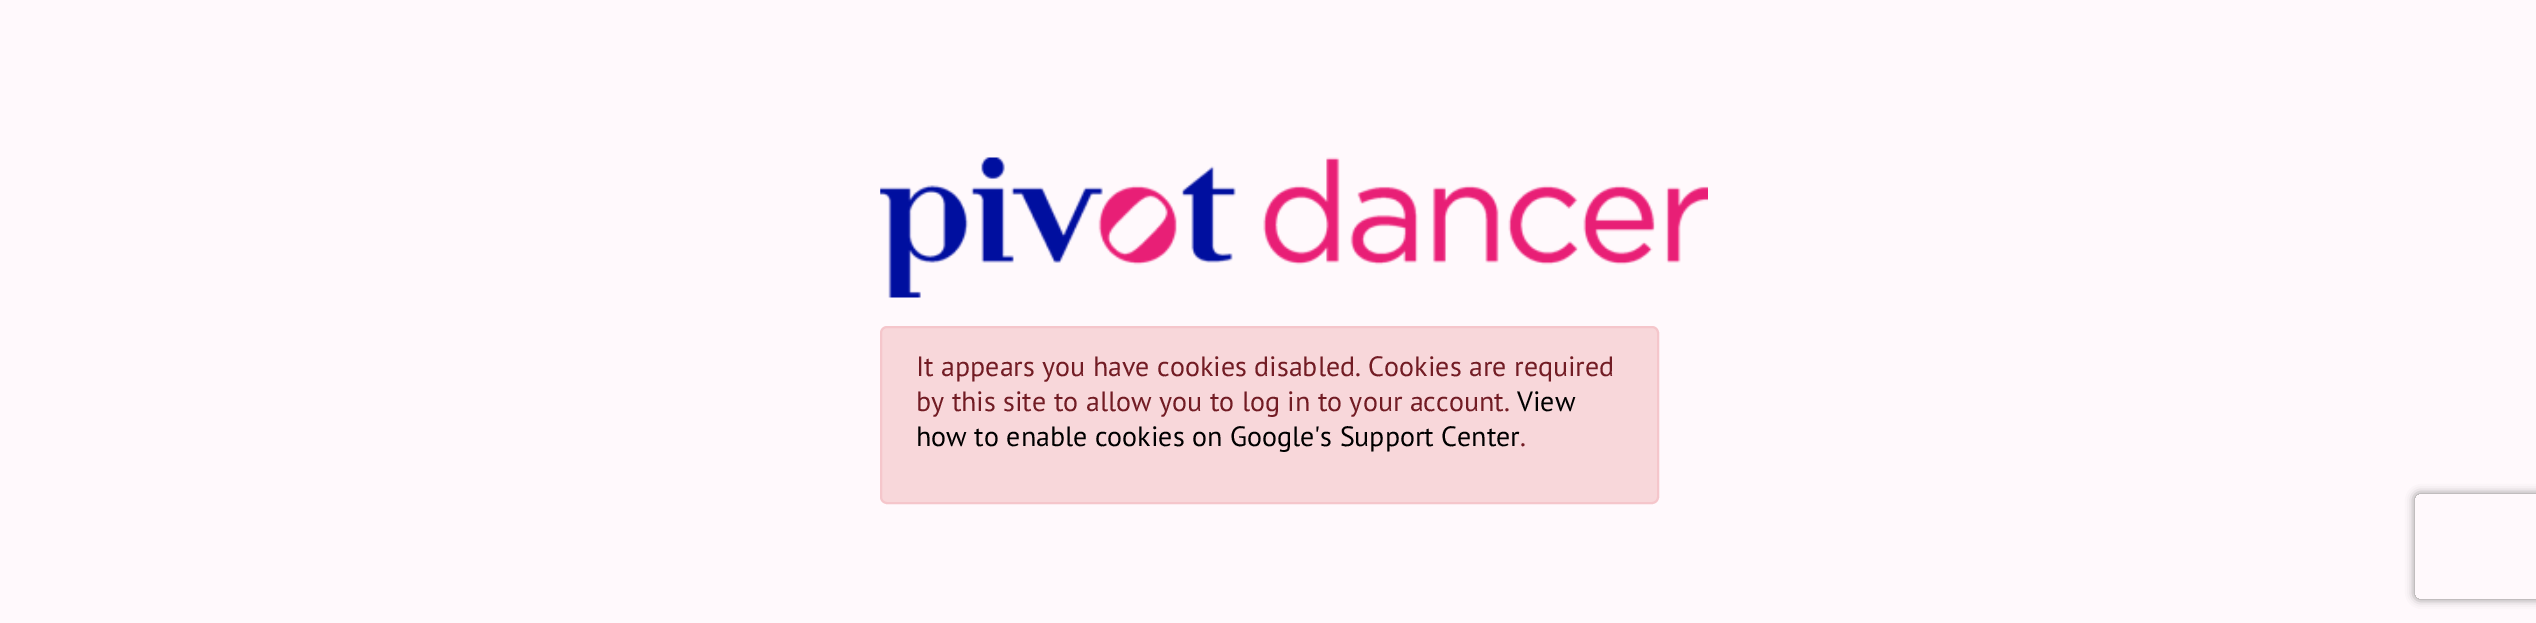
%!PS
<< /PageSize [2536 623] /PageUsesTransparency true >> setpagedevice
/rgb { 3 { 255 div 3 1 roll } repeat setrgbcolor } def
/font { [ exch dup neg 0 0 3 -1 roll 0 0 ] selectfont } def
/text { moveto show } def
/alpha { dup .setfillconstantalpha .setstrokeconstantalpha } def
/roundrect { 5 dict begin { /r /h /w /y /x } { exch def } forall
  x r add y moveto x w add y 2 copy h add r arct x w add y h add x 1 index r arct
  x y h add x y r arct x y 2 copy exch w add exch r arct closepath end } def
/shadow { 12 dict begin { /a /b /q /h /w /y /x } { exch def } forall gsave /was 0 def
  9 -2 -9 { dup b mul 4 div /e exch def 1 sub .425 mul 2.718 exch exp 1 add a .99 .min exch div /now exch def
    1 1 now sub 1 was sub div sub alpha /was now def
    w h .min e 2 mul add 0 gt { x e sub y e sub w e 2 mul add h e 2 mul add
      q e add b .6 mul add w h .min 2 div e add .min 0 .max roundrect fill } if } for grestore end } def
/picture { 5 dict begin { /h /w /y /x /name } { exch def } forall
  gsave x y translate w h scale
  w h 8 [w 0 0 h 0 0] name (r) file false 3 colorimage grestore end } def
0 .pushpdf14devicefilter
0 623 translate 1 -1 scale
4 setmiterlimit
255 249 252 rgb
0 0 2536 623 rectfill
(img_01.rgb) 880 157 828 141 picture
248 215 218 rgb
881 327 777 176 6 roundrect gsave fill grestore
245 198 203 rgb
2 setlinewidth
stroke
gsave
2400 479 moveto 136 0 rlineto 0 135 rlineto -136 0 rlineto closepath 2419 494 moveto 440 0 rlineto 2 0 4 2 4 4 rcurveto 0 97 rlineto 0 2 -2 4 -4 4 rcurveto -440 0 rlineto -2 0 -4 -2 -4 -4 rcurveto 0 -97 rlineto 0 -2 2 -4 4 -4 rcurveto closepath eoclip newpath
128 128 128 rgb
2415 494 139 105 4 4.5 1 shadow
grestore
/PTSans-Regular 28 font
114 28 36 rgb
(It appears you have cookies disabled. Cookies are required) 916 376 text
(by this site to allow you to log in to your account.) 916 411 text
0 0 0 rgb
(View) 1517 411 text
(how to enable cookies on Google's Support Center) 916 446 text
114 28 36 rgb
(.) 1520 446 text
.poppdf14devicefilter showpage
